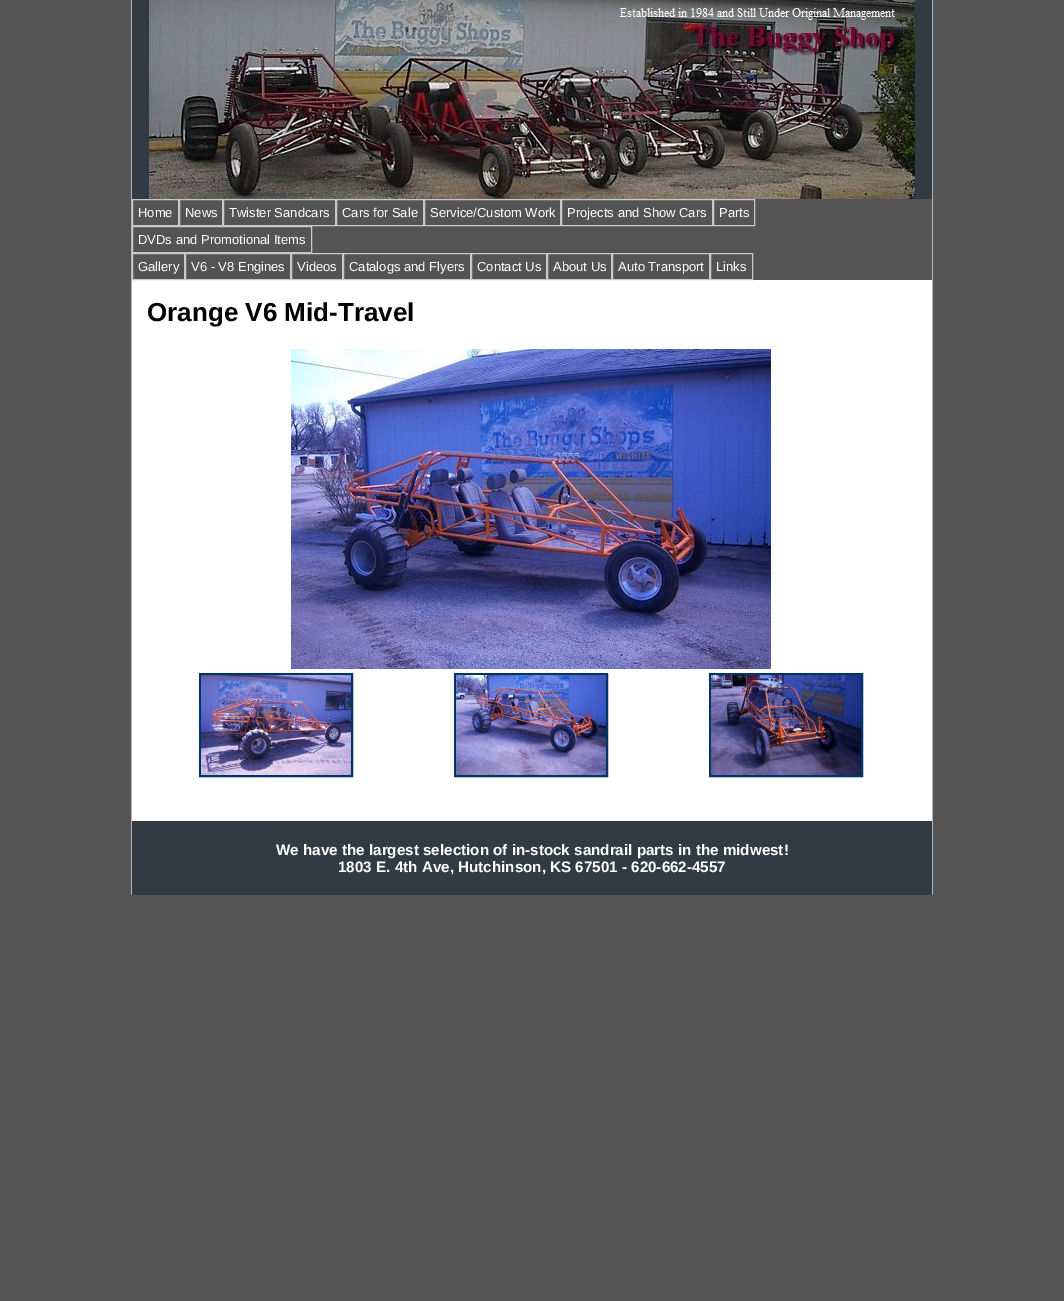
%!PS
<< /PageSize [1064 1301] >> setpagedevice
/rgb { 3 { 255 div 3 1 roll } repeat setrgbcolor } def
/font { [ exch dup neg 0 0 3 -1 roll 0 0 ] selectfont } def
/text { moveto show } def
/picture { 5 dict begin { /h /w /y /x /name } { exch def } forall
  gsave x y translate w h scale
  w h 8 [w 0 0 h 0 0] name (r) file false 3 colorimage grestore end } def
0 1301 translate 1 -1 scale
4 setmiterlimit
84 84 84 rgb
0 0 1064 1301 rectfill
255 255 255 rgb
132 280 800 541 rectfill
183 183 183 rgb
932 0 1 895 rectfill
131 0 1 895 rectfill
51 59 66 rgb
132 0 800 199 rectfill
(img_01.rgb) 149 0 766 199 picture
201 201 201 rgb
132.5 199.5 46 26 rectstroke
179.5 199.5 43 26 rectstroke
223.5 199.5 112 26 rectstroke
336.5 199.5 87 26 rectstroke
424.5 199.5 136 26 rectstroke
561.5 199.5 151 26 rectstroke
713.5 199.5 41 26 rectstroke
132.5 226.5 179 26 rectstroke
132.5 253.5 52 26 rectstroke
185.5 253.5 105 26 rectstroke
291.5 253.5 51 26 rectstroke
343.5 253.5 127 26 rectstroke
471.5 253.5 75 26 rectstroke
547.5 253.5 64 26 rectstroke
612.5 253.5 97 26 rectstroke
710.5 253.5 42 26 rectstroke
(img_02.rgb) 291 349 480 320 picture
0 51 102 rgb
2 setlinewidth
200 674 152 102 rectstroke
(img_03.rgb) 201 675 150 100 picture
455 674 152 102 rectstroke
(img_04.rgb) 456 675 150 100 picture
710 674 152 102 rectstroke
(img_05.rgb) 711 675 150 100 picture
51 59 66 rgb
132 821 800 74 rectfill
/LiberationSans-Regular 13 font
255 255 255 rgb
(Home) 138 217 text
(News) 185 217 text
(Twister Sandcars) 229 217 text
(Cars for Sale) 342 217 text
(Service/Custom Work) 430 217 text
(Projects and Show Cars) 567 217 text
(Parts) 719 217 text
(DVDs and Promotional Items) 138 244 text
(Gallery) 138 271 text
(V6 - V8 Engines) 191 271 text
(Videos) 297 271 text
(Catalogs and Flyers) 349 271 text
(Contact Us) 477 271 text
(About Us) 553 271 text
(Auto Transport) 618 271 text
(Links) 716 271 text
/LiberationSans-Bold 26 font
0 0 0 rgb
(Orange V6 Mid-Travel) 147 321 text
/LiberationSans-Bold 15.2 font
255 255 255 rgb
(We have the largest selection of in-stock sandrail parts in the midwest!) 276 855 text
(1803 E. 4th Ave, Hutchinson, KS 67501 - 620-662-4557) 338 872 text
showpage
